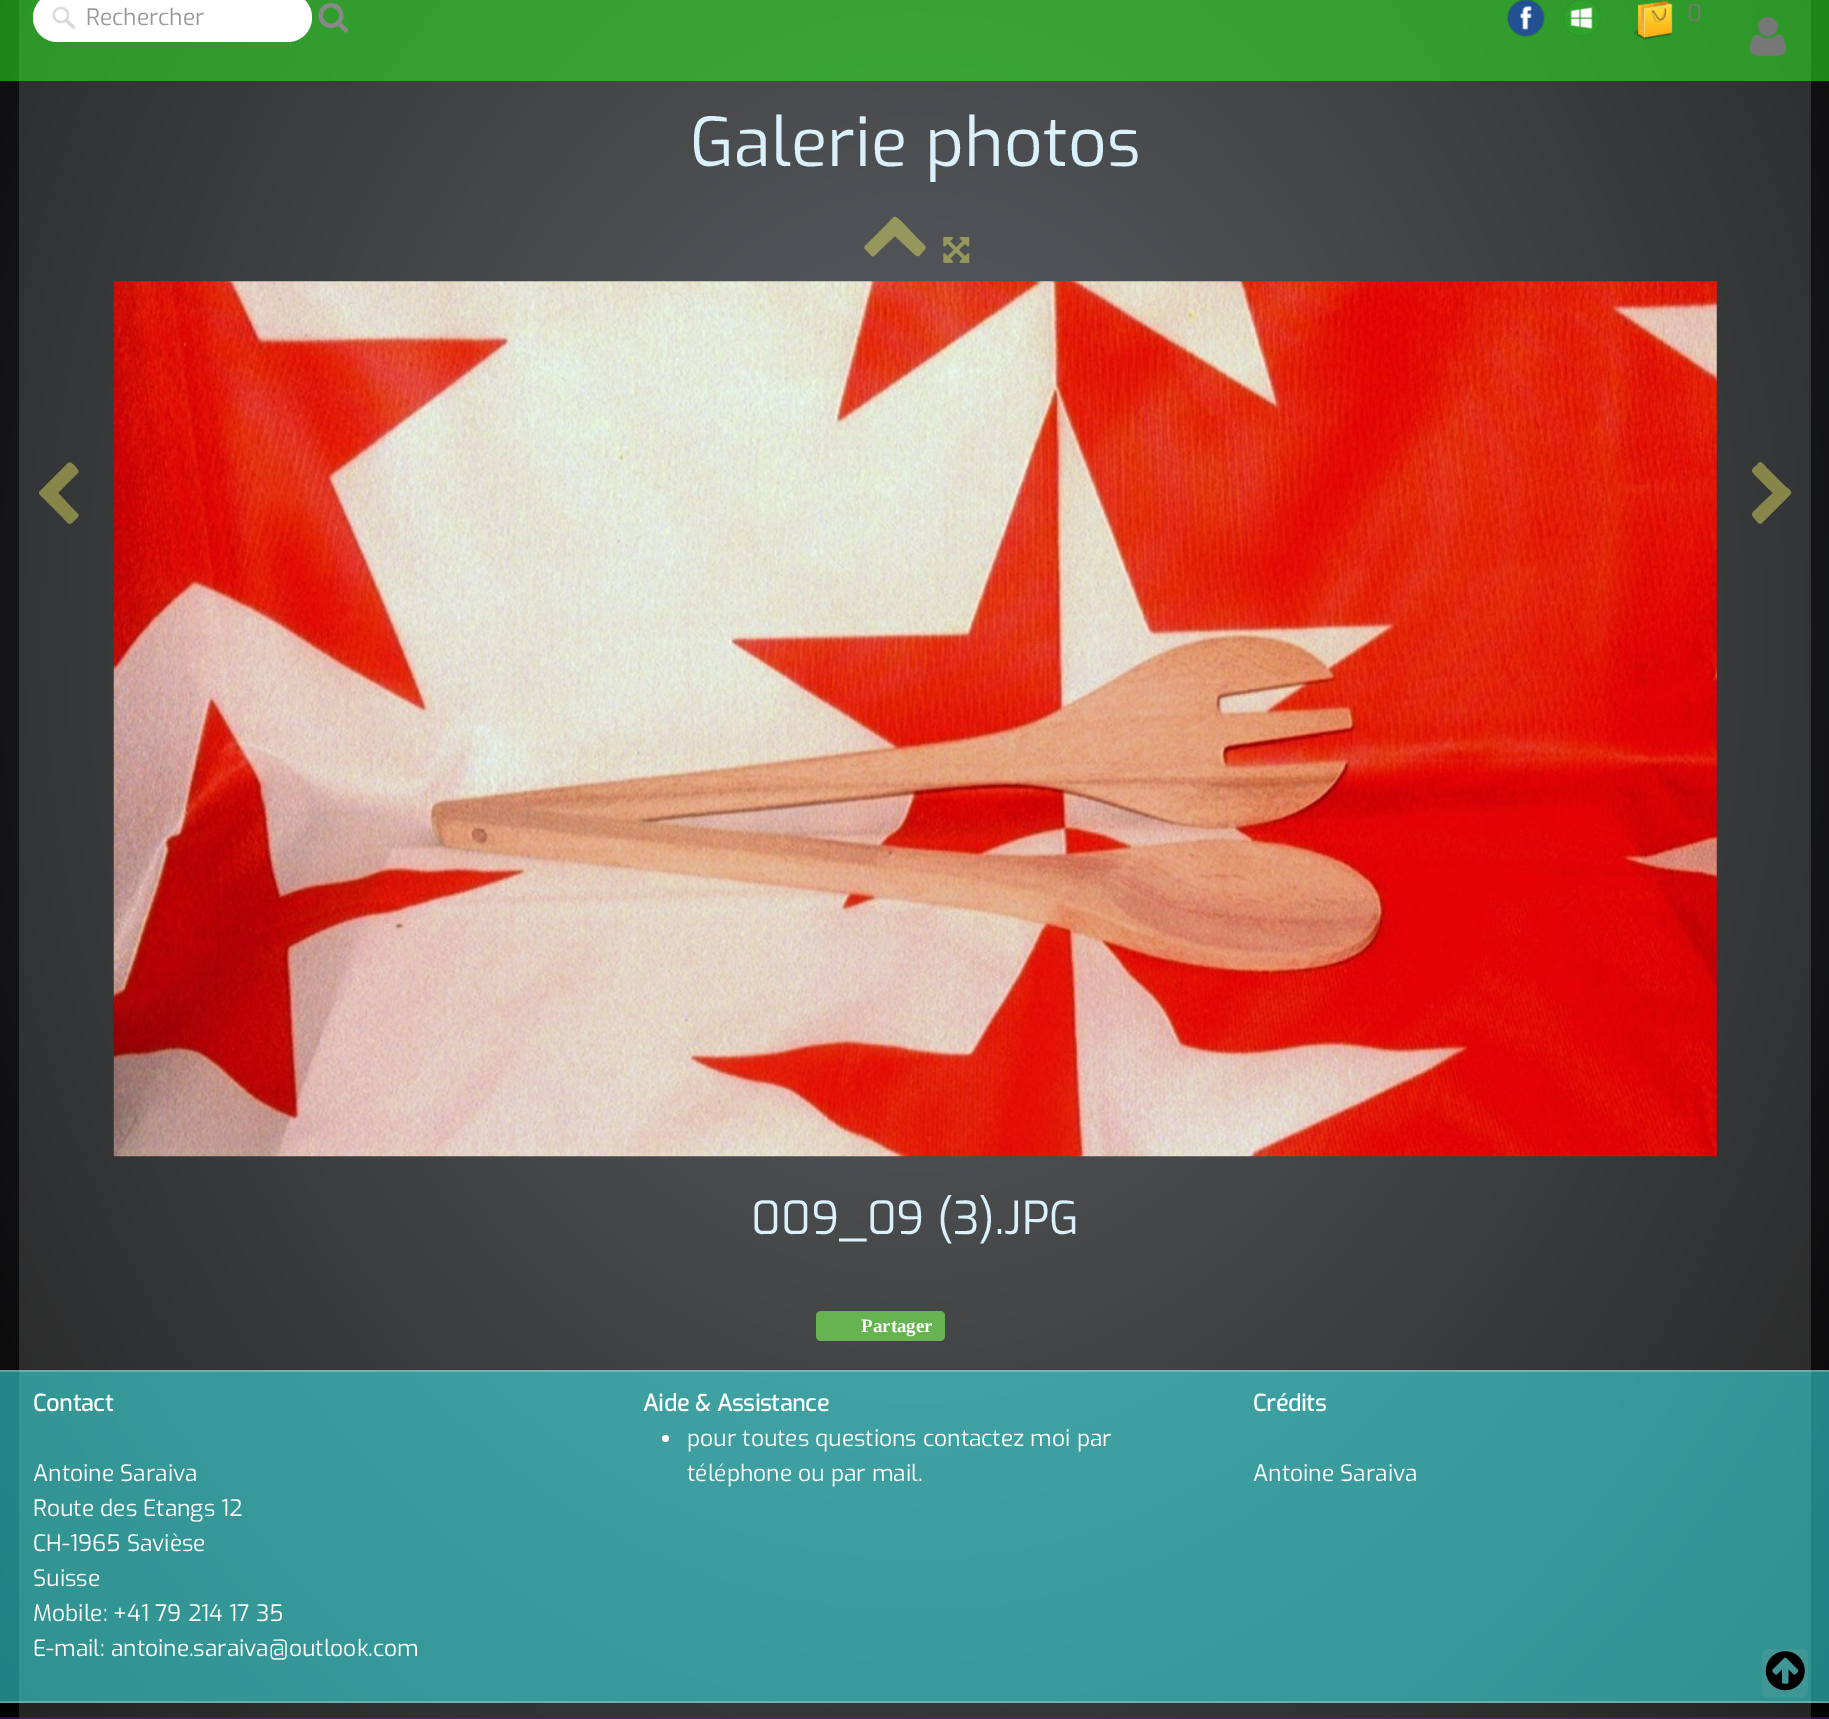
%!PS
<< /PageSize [1829 1719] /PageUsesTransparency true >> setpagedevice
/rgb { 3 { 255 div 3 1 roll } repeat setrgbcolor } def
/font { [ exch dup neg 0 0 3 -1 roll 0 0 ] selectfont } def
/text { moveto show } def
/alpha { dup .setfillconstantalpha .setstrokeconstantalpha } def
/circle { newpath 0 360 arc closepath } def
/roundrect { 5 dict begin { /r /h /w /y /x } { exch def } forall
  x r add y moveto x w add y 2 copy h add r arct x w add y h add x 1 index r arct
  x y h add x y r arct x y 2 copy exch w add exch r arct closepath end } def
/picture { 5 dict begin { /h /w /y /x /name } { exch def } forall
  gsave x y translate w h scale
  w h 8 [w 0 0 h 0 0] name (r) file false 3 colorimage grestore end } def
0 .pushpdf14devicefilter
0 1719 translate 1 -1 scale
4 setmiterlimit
255 255 255 rgb
0 0 1829 1719 rectfill
gsave 0 81 moveto 1829 0 rlineto 0 1636 rlineto -1829 0 rlineto closepath clip newpath 915 631 translate 1294 1650 scale
<< /ShadingType 3 /ColorSpace /DeviceRGB /Coords [0 0 0 0 0 1] /Extend [true true] /Function << /FunctionType 2 /Domain [0 1] /C0 [0.275 0.286 0.306] /C1 [0 0 0] /N 1 >> >> shfill grestore
gsave 0 1717 moveto 1829 0 rlineto 0 2 rlineto -1829 0 rlineto closepath clip newpath 915 631 translate 1294 1650 scale
<< /ShadingType 3 /ColorSpace /DeviceRGB /Coords [0 0 0 0 0 1] /Extend [true true] /Function << /FunctionType 2 /Domain [0 1] /C0 [0.329 0.145 0.655] /C1 [0.192 0 0.502] /N 1 >> >> shfill grestore
gsave 0 1372 moveto 1829 0 rlineto 0 329 rlineto -1829 0 rlineto closepath clip newpath 915 631 translate 1294 1650 scale
<< /ShadingType 3 /ColorSpace /DeviceRGB /Coords [0 0 0 0 0 1] /Extend [true true] /Function << /FunctionType 2 /Domain [0 1] /C0 [0.259 0.643 0.655] /C1 [0.122 0.502 0.502] /N 1 >> >> shfill grestore
gsave 0 1701 moveto 1829 0 rlineto 0 2 rlineto -1829 0 rlineto closepath clip newpath 915 631 translate 1294 1650 scale
<< /ShadingType 3 /ColorSpace /DeviceRGB /Coords [0 0 0 0 0 1] /Extend [true true] /Function << /FunctionType 2 /Domain [0 1] /C0 [0.443 0.733 0.741] /C1 [0.341 0.627 0.627] /N 1 >> >> shfill grestore
gsave 0 1370 moveto 1829 0 rlineto 0 2 rlineto -1829 0 rlineto closepath clip newpath 915 631 translate 1294 1650 scale
<< /ShadingType 3 /ColorSpace /DeviceRGB /Coords [0 0 0 0 0 1] /Extend [true true] /Function << /FunctionType 2 /Domain [0 1] /C0 [0.443 0.733 0.741] /C1 [0.341 0.627 0.627] /N 1 >> >> shfill grestore
gsave 0 0 moveto 1829 0 rlineto 0 81 rlineto -1829 0 rlineto closepath clip newpath 915 631 translate 1294 1650 scale
<< /ShadingType 3 /ColorSpace /DeviceRGB /Coords [0 0 0 0 0 1] /Extend [true true] /Function << /FunctionType 2 /Domain [0 1] /C0 [0.22 0.643 0.216] /C1 [0.082 0.502 0.063] /N 1 >> >> shfill grestore
gsave 19 81 moveto 1792 0 rlineto 0 1636 rlineto -1792 0 rlineto closepath clip newpath 915 631 translate 1294 1650 scale
<< /ShadingType 3 /ColorSpace /DeviceRGB /Coords [0 0 0 0 0 1] /Extend [true true] /Function << /FunctionType 2 /Domain [0 1] /C0 [0.369 0.38 0.396] /C1 [0.129 0.129 0.129] /N 1 >> >> shfill grestore
gsave 19 1717 moveto 1792 0 rlineto 0 2 rlineto -1792 0 rlineto closepath clip newpath 915 631 translate 1294 1650 scale
<< /ShadingType 3 /ColorSpace /DeviceRGB /Coords [0 0 0 0 0 1] /Extend [true true] /Function << /FunctionType 2 /Domain [0 1] /C0 [0.376 0.192 0.698] /C1 [0.259 0.067 0.565] /N 1 >> >> shfill grestore
gsave 19 1372 moveto 1792 0 rlineto 0 329 rlineto -1792 0 rlineto closepath clip newpath 915 631 translate 1294 1650 scale
<< /ShadingType 3 /ColorSpace /DeviceRGB /Coords [0 0 0 0 0 1] /Extend [true true] /Function << /FunctionType 2 /Domain [0 1] /C0 [0.306 0.69 0.698] /C1 [0.184 0.565 0.565] /N 1 >> >> shfill grestore
gsave 19 1701 moveto 1792 0 rlineto 0 2 rlineto -1792 0 rlineto closepath clip newpath 915 631 translate 1294 1650 scale
<< /ShadingType 3 /ColorSpace /DeviceRGB /Coords [0 0 0 0 0 1] /Extend [true true] /Function << /FunctionType 2 /Domain [0 1] /C0 [0.478 0.769 0.773] /C1 [0.388 0.675 0.675] /N 1 >> >> shfill grestore
gsave 19 1370 moveto 1792 0 rlineto 0 2 rlineto -1792 0 rlineto closepath clip newpath 915 631 translate 1294 1650 scale
<< /ShadingType 3 /ColorSpace /DeviceRGB /Coords [0 0 0 0 0 1] /Extend [true true] /Function << /FunctionType 2 /Domain [0 1] /C0 [0.478 0.769 0.773] /C1 [0.388 0.675 0.675] /N 1 >> >> shfill grestore
gsave 19 0 moveto 1792 0 rlineto 0 81 rlineto -1792 0 rlineto closepath clip newpath 915 631 translate 1294 1650 scale
<< /ShadingType 3 /ColorSpace /DeviceRGB /Coords [0 0 0 0 0 1] /Extend [true true] /Function << /FunctionType 2 /Domain [0 1] /C0 [0.267 0.69 0.259] /C1 [0.149 0.565 0.125] /N 1 >> >> shfill grestore
33 -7 279 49 24.5 roundrect fill
(img_01.rgb) 52 6 24 24 picture
(img_02.rgb) 318 3 30 30 picture
(img_03.rgb) 1507 0 38 37 picture
(img_04.rgb) 1563 0 38 37 picture
(img_05.rgb) 1633 0 40 40 picture
(img_06.rgb) 1750 16 36 40 picture
150 151 92 rgb
925 249 moveto -7 8 -6 10 -13 3 rcurveto -17 -16 rlineto -17 16 rlineto -6 7 -5 5 -12 -2 rcurveto -4 -3 0 -5 4 -9 rcurveto 19 -19 rlineto 7 -7 5 -7 13 0 rcurveto 18 19 rlineto 1 1 8 6 5 8 rcurveto closepath fill
(img_07.rgb) 943 236 27 27 picture
0.4 alpha
255 255 102 rgb
78 473 moveto -20 20 rlineto 16 17 rlineto 6 6 6 5 0 11 rcurveto -5 5 -5 3 -11 -3 rcurveto -24 -24 rlineto 0 -2 rlineto 29 -29 rlineto 2 -2 4 1 6 2 rcurveto 4 5 rlineto 1 1 1 2 0 3 rcurveto closepath fill
1 alpha
(img_08.rgb) 113 281 1604 876 picture
0.4 alpha
1790 495 moveto -28 28 rlineto -3 3 -6 -3 -7 -4 rcurveto -6 -6 -2 -6 4 -13 rcurveto 14 -13 rlineto -3 -3 -21 -20 -21 -22 rcurveto 0 -2 2 -4 4 -5 rcurveto 5 -6 4 -5 11 2 rcurveto 19 19 rlineto 0 0 6 4 5 6 rcurveto closepath fill
1 alpha
103 179 81 rgb
816 1311 129 30 5 roundrect fill
255 255 255 rgb
665.5 1438.5 3.5 circle fill
64 149 149 rgb
1762 1649 46 49 7 roundrect fill
(img_09.rgb) 1765 1651 40 40 picture
/Exo-Regular 22.75 font
153 153 153 rgb
(Rechercher) 86 25 text
119 119 119 rgb
(0) 1687 21 text
/Exo-Regular 67.5 font
218 241 251 rgb
(Galerie photos) 690 166 text
/Exo-Regular 45.5 font
(009_09 \(3\).JPG) 751 1234 text
/LiberationSerif-Bold 19 font
255 255 255 rgb
(Partager) 861 1332 text
/Exo-Bold 22.75 font
(Contact) 33 1411 text
/Exo-Regular 22.75 font
(Antoine Saraiva) 33 1481 text
(Route des Etangs 12) 33 1516 text
(CH-1965 Savièse) 33 1551 text
(Suisse) 33 1586 text
(Mobile: +41 79 214 17 35) 33 1621 text
(E-mail: antoine.saraiva@outlook.com) 33 1656 text
/Exo-Bold 22.75 font
(Aide & Assistance) 643 1411 text
/Exo-Regular 22.75 font
(pour toutes questions contactez moi par) 687 1446 text
(téléphone ou par mail.) 687 1481 text
/Exo-Bold 22.75 font
(Crédits) 1253 1411 text
/Exo-Regular 22.75 font
(Antoine Saraiva) 1253 1481 text
.poppdf14devicefilter showpage
